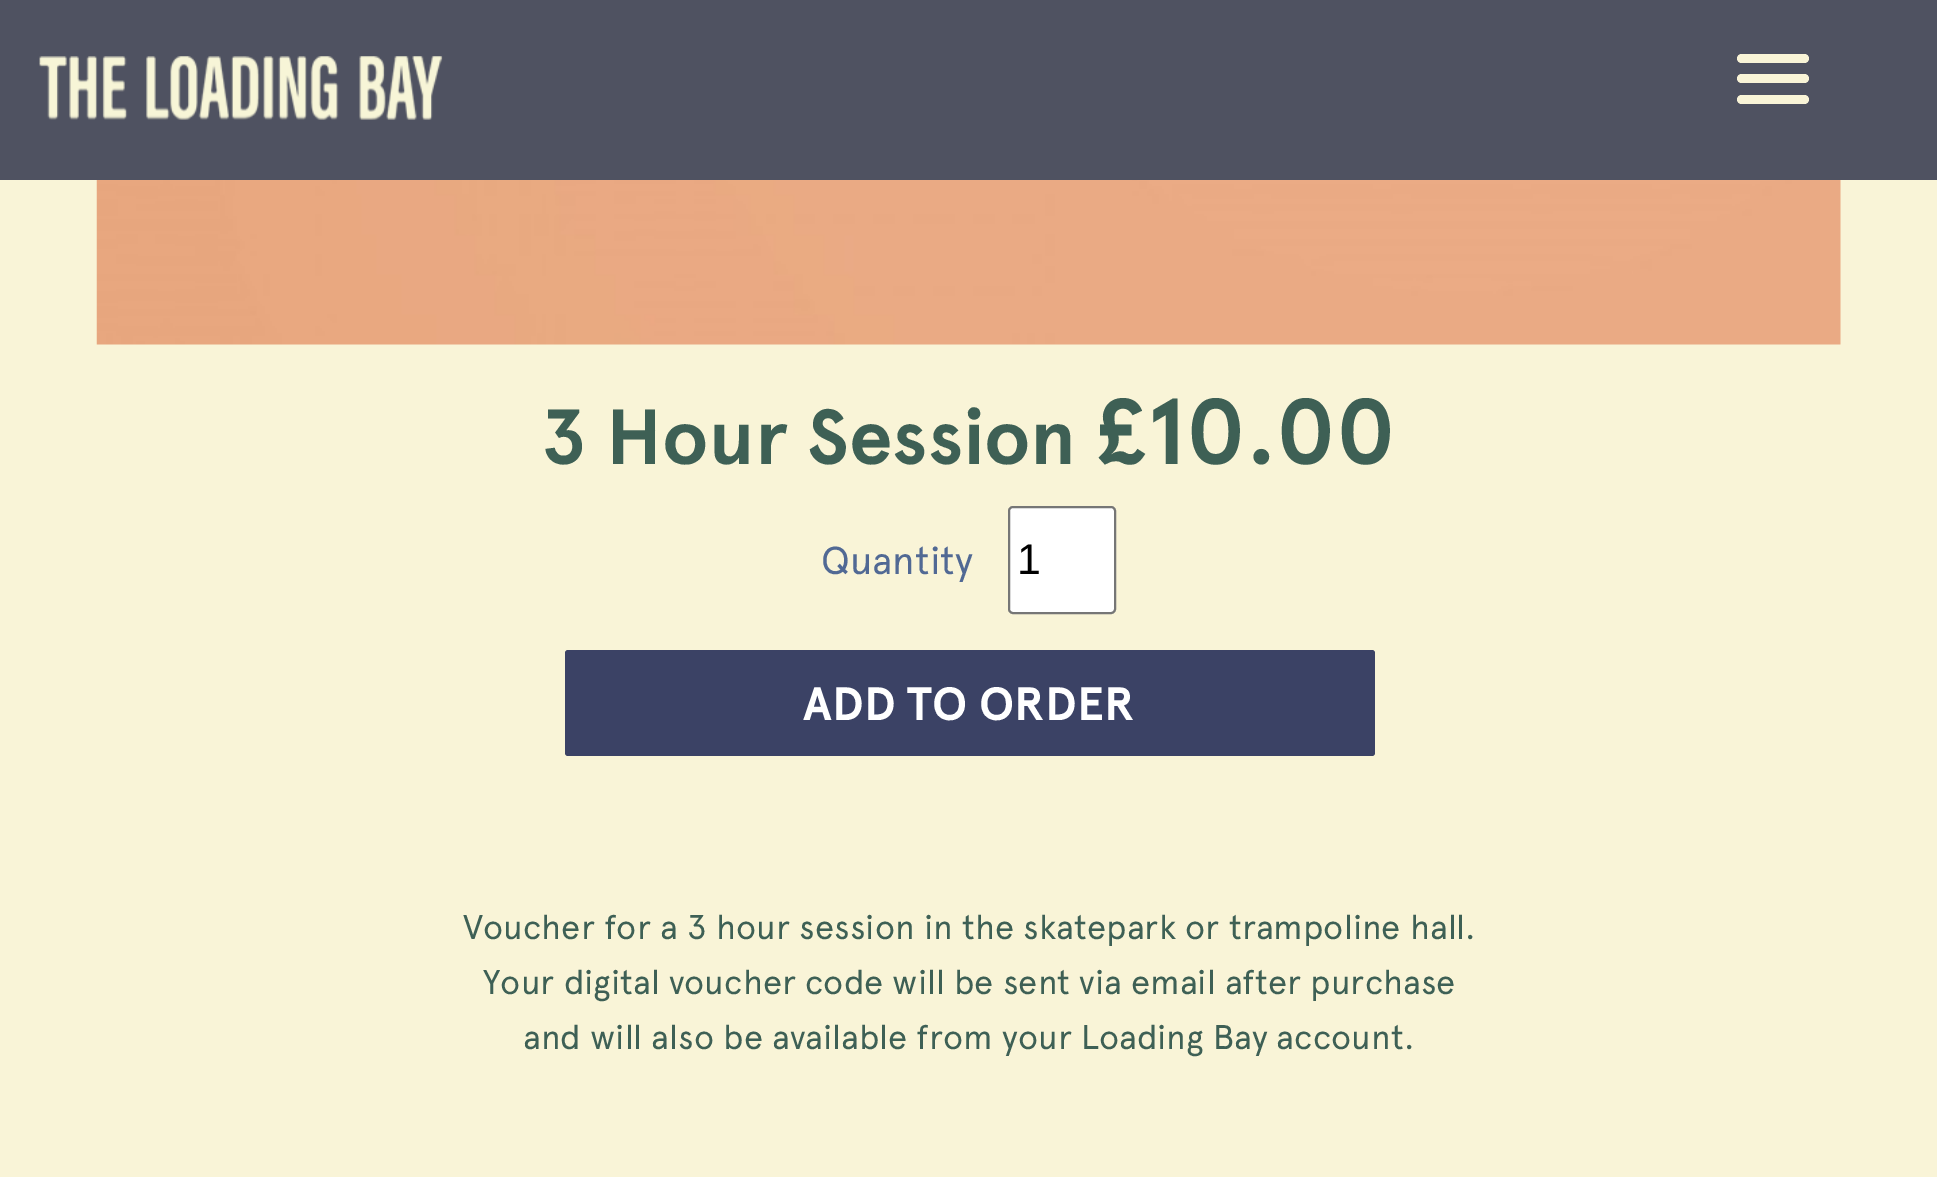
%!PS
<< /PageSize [1937 1177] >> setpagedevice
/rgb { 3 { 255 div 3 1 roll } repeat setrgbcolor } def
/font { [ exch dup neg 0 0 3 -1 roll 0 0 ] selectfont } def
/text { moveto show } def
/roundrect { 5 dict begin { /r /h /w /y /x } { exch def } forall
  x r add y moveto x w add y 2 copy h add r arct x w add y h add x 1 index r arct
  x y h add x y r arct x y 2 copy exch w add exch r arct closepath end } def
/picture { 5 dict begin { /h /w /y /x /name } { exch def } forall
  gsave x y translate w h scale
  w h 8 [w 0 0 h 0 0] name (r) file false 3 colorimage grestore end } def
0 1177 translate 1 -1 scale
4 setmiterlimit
249 244 215 rgb
0 0 1937 1177 rectfill
79 82 97 rgb
0 0 1937 180 rectfill
(img_01.rgb) 39 56 404 64 picture
249 244 215 rgb
1737 54 72 9 4.5 roundrect fill
1737 74 72 9 4.5 roundrect fill
1737 95 72 9 4.5 roundrect fill
(img_02.rgb) 96 180 1745 165 picture
255 255 255 rgb
1009 507 106 106 4 roundrect gsave fill grestore
118 118 118 rgb
2 setlinewidth
stroke
59 66 101 rgb
565 650 810 106 3 roundrect fill
/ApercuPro-Bold 78 font
62 96 85 rgb
(3 Hour Session) 541 464 text
/ApercuPro-Bold 93.5 font
(£10.00) 1095 464 text
/ApercuPro-Regular 39 font
81 105 148 rgb
(Quantity) 821 574 text
/LiberationSans-Regular 43 font
0 0 0 rgb
(1) 1017 574 text
/ApercuPro-Bold 46.75 font
255 255 255 rgb
(ADD TO ORDER) 803 720 text
/ApercuPro-Regular 34.2 font
62 96 85 rgb
(Voucher for a 3 hour session in the skatepark or trampoline hall.) 463 939 text
(Your digital voucher code will be sent via email after purchase) 483 994 text
(and will also be available from your Loading Bay account.) 523 1049 text
showpage
